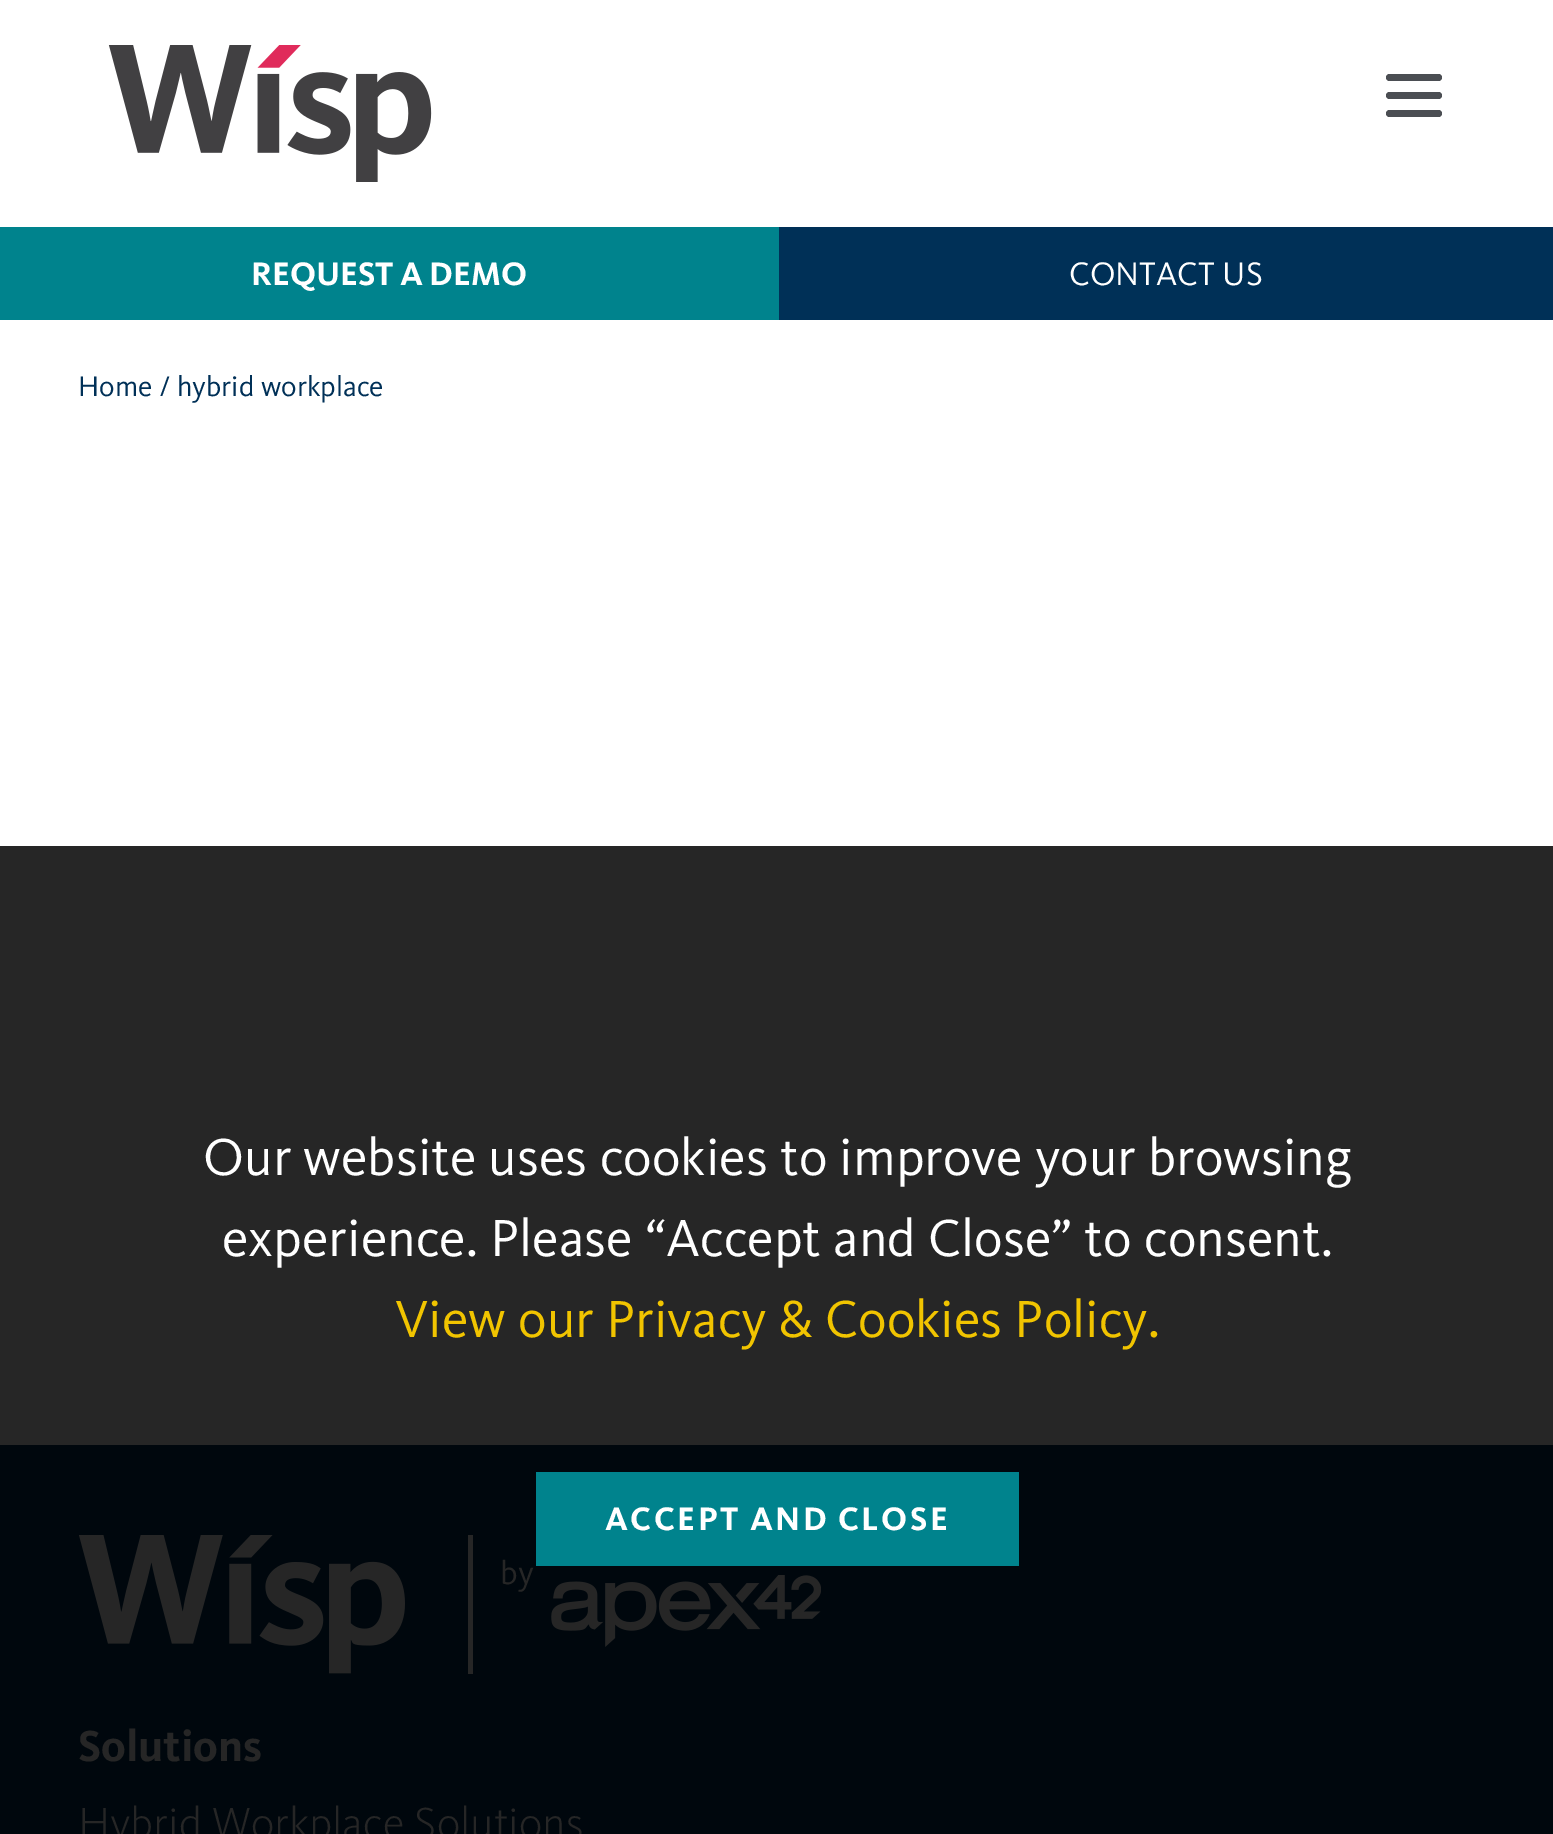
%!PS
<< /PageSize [1553 1834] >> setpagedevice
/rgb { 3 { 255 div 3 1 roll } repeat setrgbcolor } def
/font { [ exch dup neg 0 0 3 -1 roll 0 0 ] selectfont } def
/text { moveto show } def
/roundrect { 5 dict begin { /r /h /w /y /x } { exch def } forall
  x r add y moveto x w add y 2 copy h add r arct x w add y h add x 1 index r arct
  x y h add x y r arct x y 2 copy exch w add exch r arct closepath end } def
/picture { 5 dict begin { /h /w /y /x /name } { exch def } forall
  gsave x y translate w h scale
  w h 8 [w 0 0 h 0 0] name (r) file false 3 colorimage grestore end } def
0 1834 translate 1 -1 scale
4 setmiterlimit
0 7 13 rgb
0 0 1553 1834 rectfill
255 255 255 rgb
0 0 1553 227 rectfill
(img_01.rgb) 108 45 324 137 picture
75 78 83 rgb
1386 92 56 7 3.5 roundrect fill
1386 74 56 7 3.5 roundrect fill
1386 110 56 7 3.5 roundrect fill
0 131 141 rgb
0 227 779 93 rectfill
0 48 87 rgb
779 227 774 93 rectfill
255 255 255 rgb
0 320 1553 526 rectfill
38 38 38 rgb
0 846 1553 599 rectfill
0 131 141 rgb
536 1472 483 94 rectfill
(img_02.rgb) 79 1535 326 139 picture
38 38 38 rgb
468 1535 5 139 rectfill
(img_03.rgb) 551 1575 270 72 picture
/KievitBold-Bold 33.75 font
255 255 255 rgb
(REQUEST A DEMO) 251 285 text
/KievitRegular-Regular 33.75 font
(CONTACT US) 1069 285 text
/KievitRegular-Regular 29.25 font
0 48 87 rgb
(Home / hybrid workplace) 78 396 text
/KievitRegular-Regular 54 font
255 255 255 rgb
(Our website uses cookies to improve your browsing) 203 1175 text
(experience. Please “Accept and Close” to consent.) 222 1256 text
241 196 0 rgb
(View our Privacy & Cookies Policy.) 395 1337 text
/KievitBold-Bold 33.75 font
255 255 255 rgb
605 1530 moveto 2.5 0 (ACCEPT AND CLOSE) ashow
/KievitRegular-Regular 33.75 font
38 38 38 rgb
(by) 500 1584 text
/KievitBold-Bold 45 font
(Solutions) 78 1761 text
/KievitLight-Light 45 font
(Hybrid Workplace Solutions) 78 1838 text
showpage
